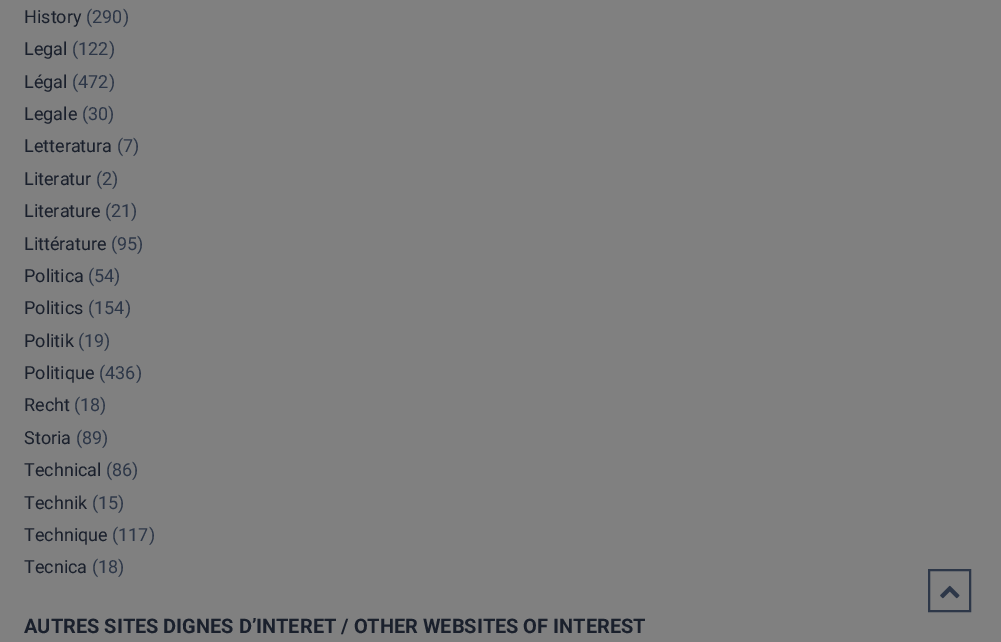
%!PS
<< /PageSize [1001 642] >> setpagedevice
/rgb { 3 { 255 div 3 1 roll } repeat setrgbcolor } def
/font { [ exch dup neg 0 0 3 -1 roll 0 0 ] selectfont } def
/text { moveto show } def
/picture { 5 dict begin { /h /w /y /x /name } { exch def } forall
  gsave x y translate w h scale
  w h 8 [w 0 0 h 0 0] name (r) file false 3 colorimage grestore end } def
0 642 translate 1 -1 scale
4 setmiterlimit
128 128 128 rgb
0 0 1001 642 rectfill
45 55 72 rgb
2 setlinewidth
929 570 41 41 rectstroke
(img_01.rgb) 940 585 20 14 picture
/Roboto-Regular 18 font
26 32 44 rgb
(History) 24 23 text
45 55 72 rgb
(\(290\)) 86 23 text
26 32 44 rgb
(Legal) 24 55 text
45 55 72 rgb
(\(122\)) 72 55 text
26 32 44 rgb
(Légal) 24 88 text
45 55 72 rgb
(\(472\)) 72 88 text
26 32 44 rgb
(Legale) 24 120 text
45 55 72 rgb
(\(30\)) 82 120 text
26 32 44 rgb
(Letteratura) 24 152 text
45 55 72 rgb
(\(7\)) 117 152 text
26 32 44 rgb
(Literatur) 24 185 text
45 55 72 rgb
(\(2\)) 96 185 text
26 32 44 rgb
(Literature) 24 217 text
45 55 72 rgb
(\(21\)) 105 217 text
26 32 44 rgb
(Littérature) 24 250 text
45 55 72 rgb
(\(95\)) 111 250 text
26 32 44 rgb
(Politica) 24 282 text
45 55 72 rgb
(\(54\)) 88 282 text
26 32 44 rgb
(Politics) 24 314 text
45 55 72 rgb
(\(154\)) 88 314 text
26 32 44 rgb
(Politik) 24 347 text
45 55 72 rgb
(\(19\)) 78 347 text
26 32 44 rgb
(Politique) 24 379 text
45 55 72 rgb
(\(436\)) 99 379 text
26 32 44 rgb
(Recht) 24 411 text
45 55 72 rgb
(\(18\)) 74 411 text
26 32 44 rgb
(Storia) 24 444 text
45 55 72 rgb
(\(89\)) 76 444 text
26 32 44 rgb
(Technical) 24 476 text
45 55 72 rgb
(\(86\)) 106 476 text
26 32 44 rgb
(Technik) 24 509 text
45 55 72 rgb
(\(15\)) 92 509 text
26 32 44 rgb
(Technique) 24 541 text
45 55 72 rgb
(\(117\)) 112 541 text
26 32 44 rgb
(Tecnica) 24 573 text
45 55 72 rgb
(\(18\)) 92 573 text
/Roboto-Bold 20 font
26 32 44 rgb
(AUTRES SITES DIGNES D’INTERET / OTHER WEBSITES OF INTEREST) 24 633 text
showpage
